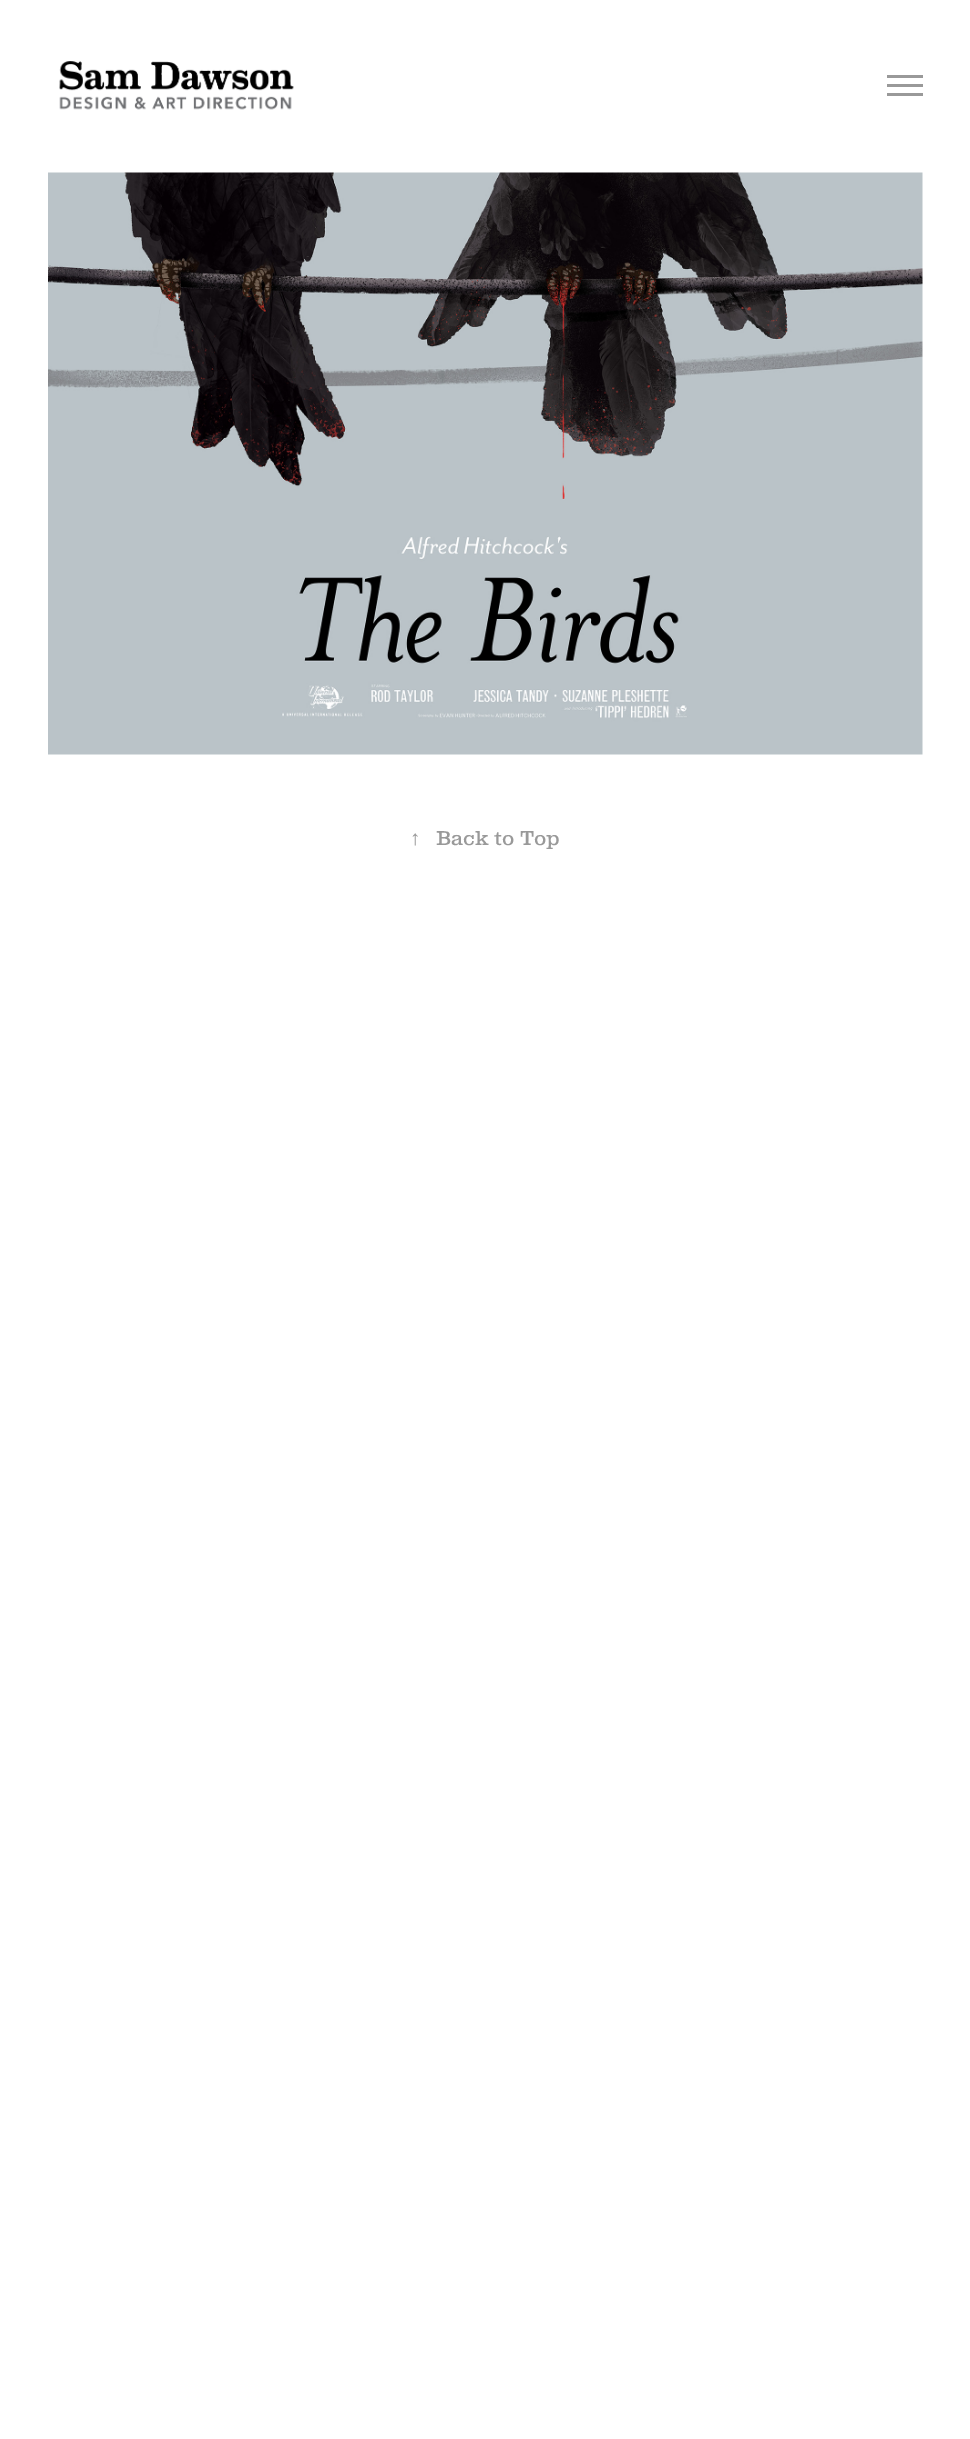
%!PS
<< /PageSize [970 2439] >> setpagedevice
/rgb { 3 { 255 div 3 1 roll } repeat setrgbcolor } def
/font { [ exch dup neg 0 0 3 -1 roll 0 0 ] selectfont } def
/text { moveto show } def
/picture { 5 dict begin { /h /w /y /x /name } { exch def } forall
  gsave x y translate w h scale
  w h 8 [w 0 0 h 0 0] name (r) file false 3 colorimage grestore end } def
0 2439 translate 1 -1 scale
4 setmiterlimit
255 255 255 rgb
0 0 970 2439 rectfill
(img_01.rgb) 59 61 235 49 picture
153 153 153 rgb
887 75 36 3 rectfill
887 84 36 3 rectfill
887 93 36 3 rectfill
(img_02.rgb) 48 172 875 583 picture
/LiberationSerif-Regular 21 font
(↑) 410 845 text
/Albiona-Medium 21 font
(Back to Top) 436 845 text
showpage
